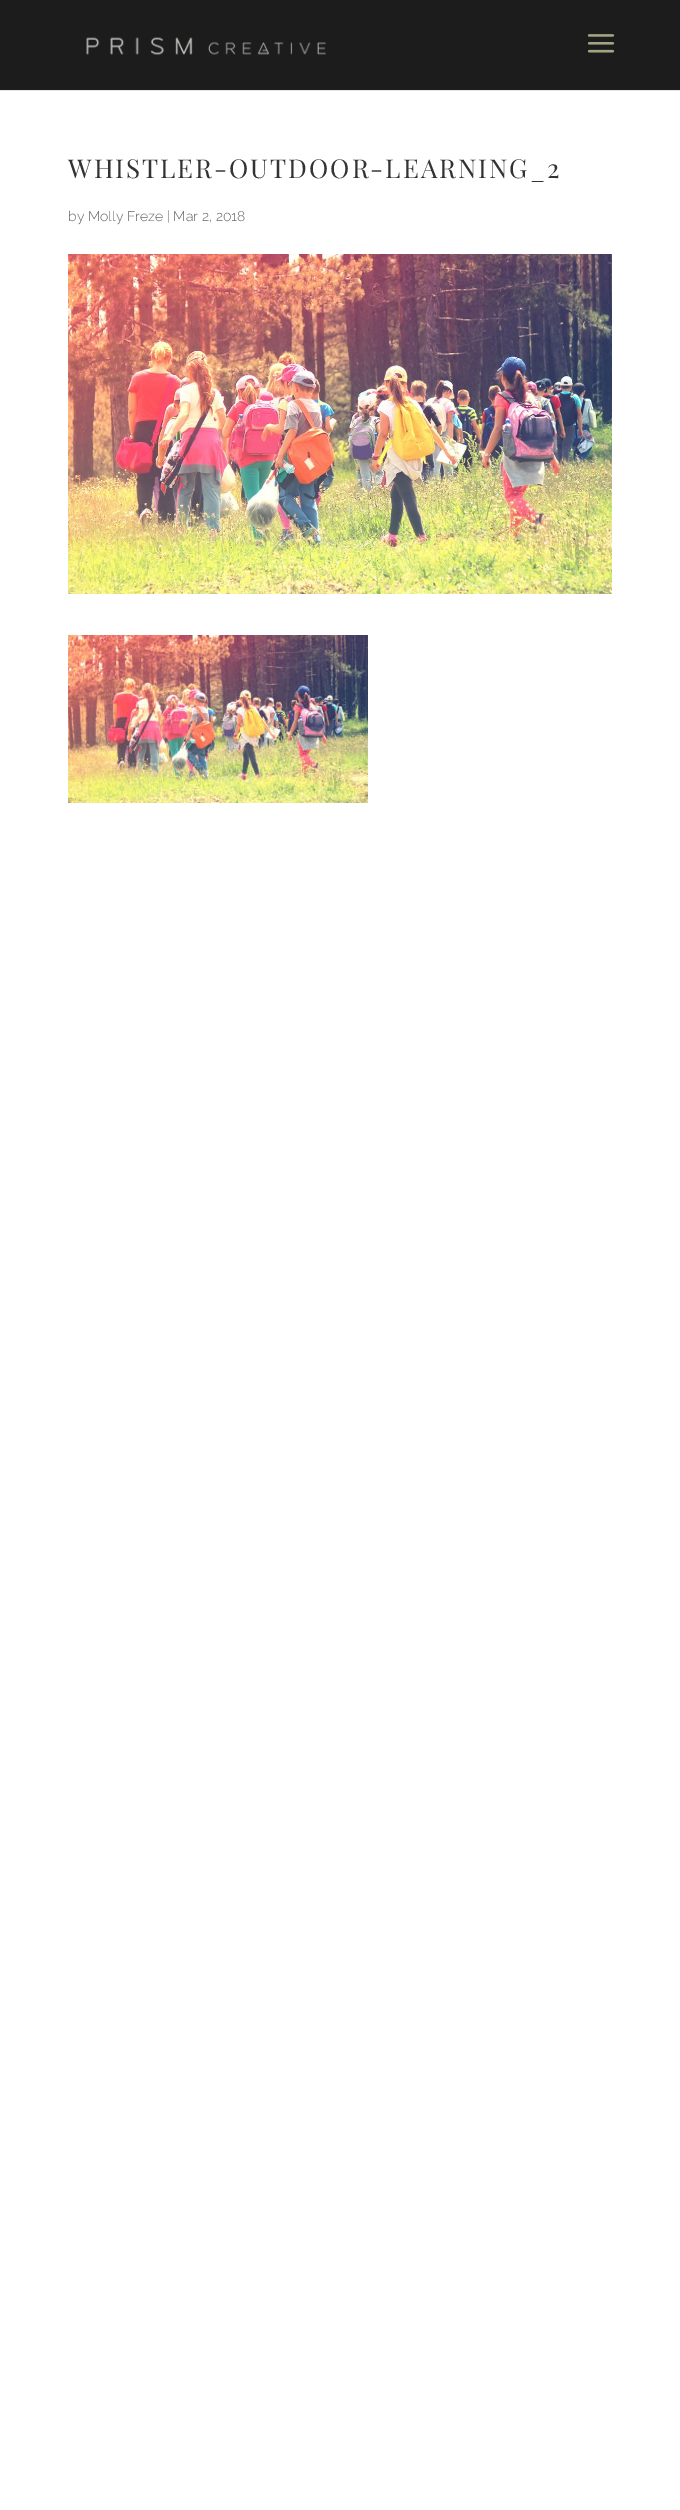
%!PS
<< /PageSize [680 2510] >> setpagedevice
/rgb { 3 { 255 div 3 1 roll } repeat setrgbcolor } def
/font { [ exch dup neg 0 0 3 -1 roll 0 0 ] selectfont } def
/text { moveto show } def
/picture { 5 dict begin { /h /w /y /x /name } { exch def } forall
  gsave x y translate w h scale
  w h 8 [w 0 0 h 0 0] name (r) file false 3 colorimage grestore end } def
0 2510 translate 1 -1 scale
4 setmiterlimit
255 255 255 rgb
0 0 680 2510 rectfill
230 230 230 rgb
0 90 680 1 rectfill
28 28 28 rgb
0 0 680 90 rectfill
(img_01.rgb) 86 37 240 18 picture
(img_02.rgb) 587 34 28 19 picture
(img_03.rgb) 68 254 544 340 picture
(img_04.rgb) 68 635 300 168 picture
/PlayfairDisplay-Regular 26 font
51 51 51 rgb
68 178 moveto 2 0 (WHISTLER-OUTDOOR-LEARNING_2) ashow
/Raleway-Light 14 font
102 102 102 rgb
(by Molly Freze | Mar 2, 2018) 68 221 text
showpage
